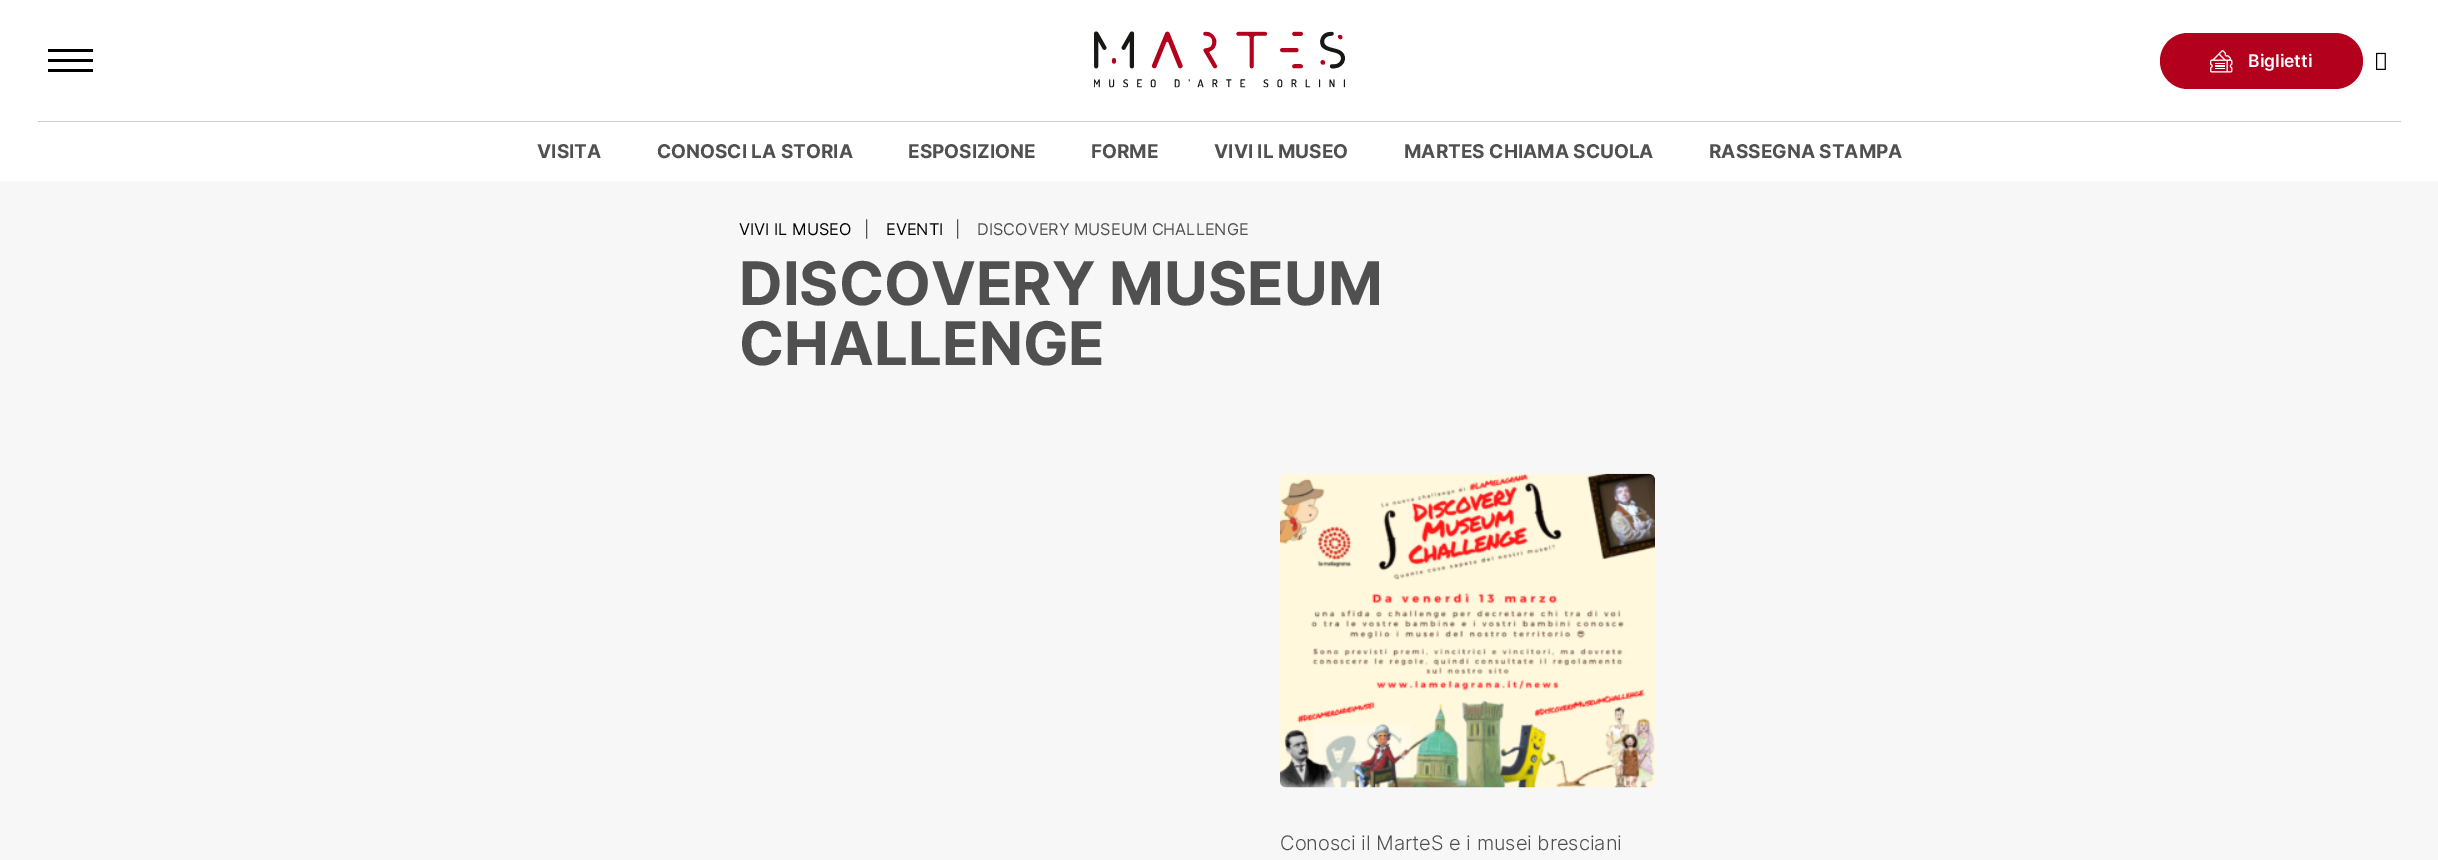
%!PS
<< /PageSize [2438 860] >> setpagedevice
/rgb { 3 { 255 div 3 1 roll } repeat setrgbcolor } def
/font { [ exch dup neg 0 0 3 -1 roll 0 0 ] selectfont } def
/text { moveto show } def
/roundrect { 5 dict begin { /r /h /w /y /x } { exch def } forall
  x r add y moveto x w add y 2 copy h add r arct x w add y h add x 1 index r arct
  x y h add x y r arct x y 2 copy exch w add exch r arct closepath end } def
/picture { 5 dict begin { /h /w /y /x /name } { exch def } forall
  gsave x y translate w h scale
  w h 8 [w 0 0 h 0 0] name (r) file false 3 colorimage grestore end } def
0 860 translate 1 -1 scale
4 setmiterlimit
255 255 255 rgb
0 0 2438 860 rectfill
204 204 204 rgb
38 121 2363 1 rectfill
0 0 0 rgb
48 59 45 3 rectfill
48 49 45 3 rectfill
48 69 45 3 rectfill
(img_01.rgb) 1094 31 251 57 picture
179 0 29 rgb
2160 33 203 56 28 roundrect fill
(img_02.rgb) 2210 50 23 23 picture
(img_03.rgb) 2376 52 10 18 picture
247 247 247 rgb
0 181 2438 679 rectfill
(img_04.rgb) 1280 473 375 315 picture
/Inter-SemiBold 17.5 font
255 255 255 rgb
(Biglietti) 2248 67 text
/Inter-Bold 19 font
80 80 80 rgb
(VISITA) 537 158 text
(CONOSCI LA STORIA) 657 158 text
(ESPOSIZIONE) 908 158 text
(FORME) 1091 158 text
(VIVI IL MUSEO) 1214 158 text
(MARTES CHIAMA SCUOLA) 1404 158 text
(RASSEGNA STAMPA) 1709 158 text
/Inter-Regular 16.25 font
0 0 0 rgb
(VIVI IL MUSEO) 739 235 text
80 80 80 rgb
(|) 864 235 text
0 0 0 rgb
(EVENTI) 886 235 text
80 80 80 rgb
(|) 955 235 text
(DISCOVERY MUSEUM CHALLENGE) 977 235 text
/Inter-Bold 60 font
(DISCOVERY MUSEUM) 739 305 text
(CHALLENGE) 739 365 text
/Inter-Light 20 font
(Conosci il MarteS e i musei bresciani) 1280 850 text
showpage
